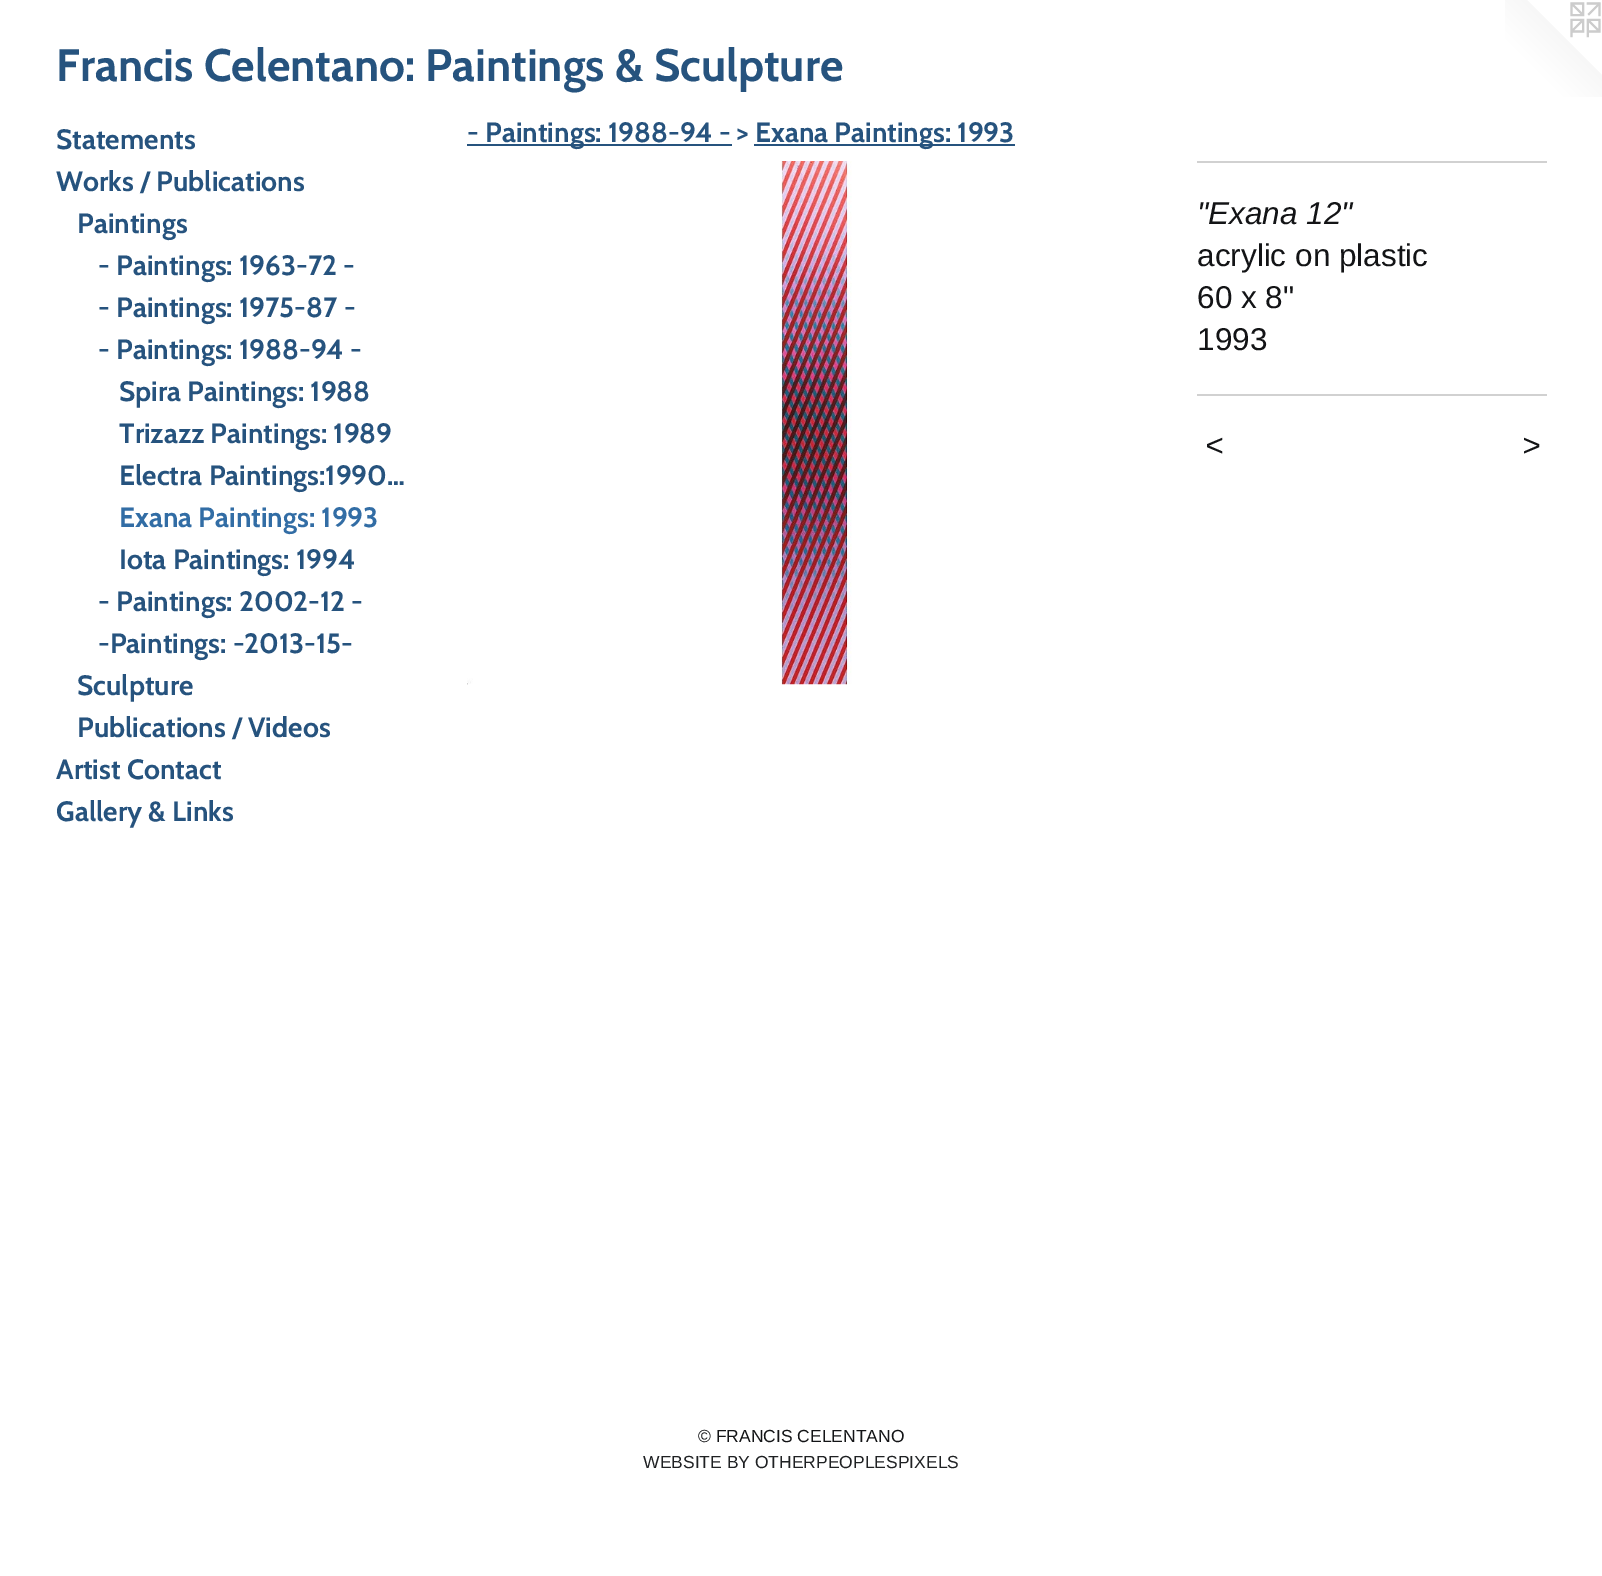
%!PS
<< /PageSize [1602 1576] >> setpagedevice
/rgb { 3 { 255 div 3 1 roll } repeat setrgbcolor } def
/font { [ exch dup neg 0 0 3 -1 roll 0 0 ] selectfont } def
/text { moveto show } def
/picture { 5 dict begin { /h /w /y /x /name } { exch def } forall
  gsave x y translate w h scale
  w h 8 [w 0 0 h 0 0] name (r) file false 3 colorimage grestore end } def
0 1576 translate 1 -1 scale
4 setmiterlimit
255 255 255 rgb
0 0 1602 1576 rectfill
(img_01.rgb) 1505 0 97 97 picture
38 83 126 rgb
467 144 265 2 rectfill
754 144 261 2 rectfill
(img_02.rgb) 467 161 385 524 picture
209 209 209 rgb
1197 161 350 2 rectfill
1197 394 350 2 rectfill
/Cabin-Bold 45.5 font
38 83 126 rgb
(Francis Celentano: Paintings & Sculpture) 56 81 text
/Cabin-Bold 28 font
(Statements) 56 149 text
(Works / Publications) 56 191 text
(Paintings) 77 233 text
(- Paintings: 1963-72 -) 98 275 text
(- Paintings: 1975-87 -) 98 317 text
(- Paintings: 1988-94 -) 98 359 text
(Spira Paintings: 1988) 119 401 text
(Trizazz Paintings: 1989) 119 443 text
(Electra Paintings:1990…) 119 485 text
50 109 165 rgb
(Exana Paintings: 1993) 119 527 text
38 83 126 rgb
(Iota Paintings: 1994) 119 569 text
(- Paintings: 2002-12 -) 98 611 text
(-Paintings: -2013-15-) 98 653 text
(Sculpture) 77 695 text
(Publications / Videos) 77 737 text
(Artist Contact) 56 779 text
(Gallery & Links) 56 821 text
(- Paintings: 1988-94 - >) 467 142 text
(Exana Paintings: 1993) 755 142 text
/LiberationSans-Italic 31.5 font
19 20 22 rgb
("Exana 12") 1197 224 text
/LiberationSans-Regular 31.5 font
(acrylic on plastic) 1197 266 text
(60 x 8") 1197 308 text
(1993) 1197 350 text
/LiberationSans-Italic 31.5 font
1205 456 moveto 2 0 (<) ashow
1522 456 moveto 2 0 (>) ashow
/LiberationSans-Regular 17.5 font
(© FRANCIS CELENTANO) 698 1442 text
31 33 35 rgb
(WEBSITE BY OTHERPEOPLESPIXELS) 643 1468 text
showpage
